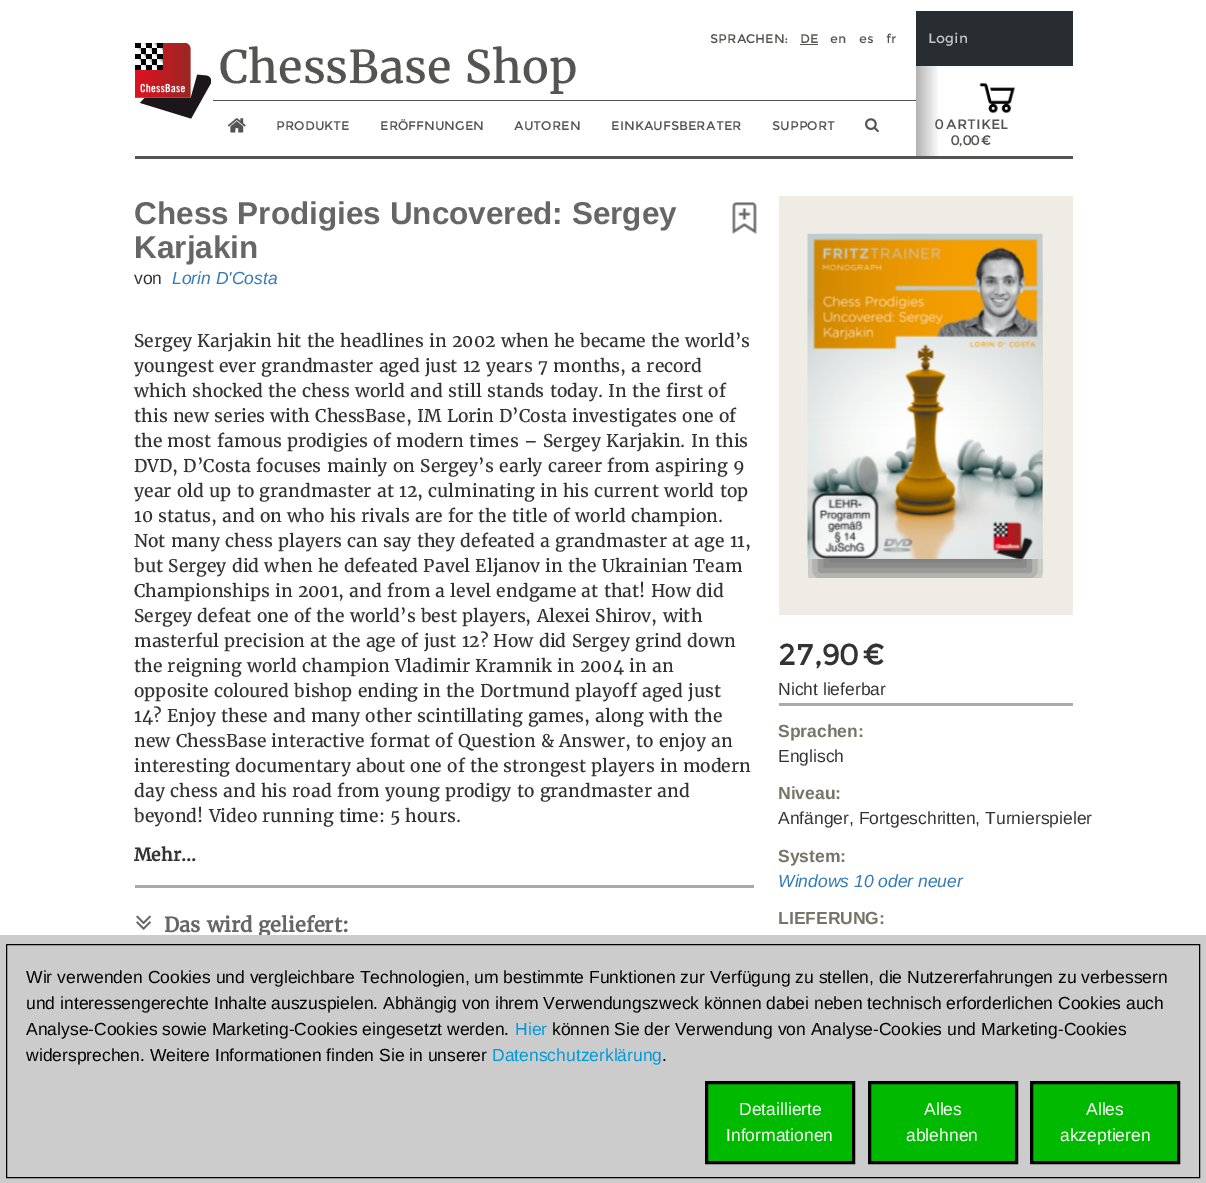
%!PS
<< /PageSize [1206 1183] /PageUsesTransparency true >> setpagedevice
/rgb { 3 { 255 div 3 1 roll } repeat setrgbcolor } def
/font { [ exch dup neg 0 0 3 -1 roll 0 0 ] selectfont } def
/text { moveto show } def
/alpha { dup .setfillconstantalpha .setstrokeconstantalpha } def
/roundrect { 5 dict begin { /r /h /w /y /x } { exch def } forall
  x r add y moveto x w add y 2 copy h add r arct x w add y h add x 1 index r arct
  x y h add x y r arct x y 2 copy exch w add exch r arct closepath end } def
/shadow { 12 dict begin { /a /b /q /h /w /y /x } { exch def } forall gsave /was 0 def
  9 -2 -9 { dup b mul 4 div /e exch def 1 sub .425 mul 2.718 exch exp 1 add a .99 .min exch div /now exch def
    1 1 now sub 1 was sub div sub alpha /was now def
    w h .min e 2 mul add 0 gt { x e sub y e sub w e 2 mul add h e 2 mul add
      q e add b .6 mul add w h .min 2 div e add .min 0 .max roundrect fill } if } for grestore end } def
/picture { 5 dict begin { /h /w /y /x /name } { exch def } forall
  gsave x y translate w h scale
  w h 8 [w 0 0 h 0 0] name (r) file false 3 colorimage grestore end } def
0 .pushpdf14devicefilter
0 1183 translate 1 -1 scale
4 setmiterlimit
255 255 255 rgb
0 0 1206 1183 rectfill
84 84 83 rgb
135 156 938 3 rectfill
(img_01.rgb) 135 43 76 76 picture
213 100 703 1 rectfill
800 44 18 1 rectfill
(img_02.rgb) 227 118 19 15 picture
(img_03.rgb) 865 118 14 15 picture
39 45 49 rgb
916 11 157 55 rectfill
gsave 916 66 moveto 23 0 rlineto 0 90 rlineto -23 0 rlineto closepath clip newpath
<< /ShadingType 2 /ColorSpace /DeviceRGB /Coords [916 111 1073 111] /Extend [true true] /Function << /FunctionType 3 /Domain [0 1] /Functions [<< /FunctionType 2 /Domain [0 1] /C0 [0.698 0.698 0.698] /C1 [1 1 1] /N 1 >> << /FunctionType 2 /Domain [0 1] /C0 [1 1 1] /C1 [1 1 1] /N 1 >> << /FunctionType 2 /Domain [0 1] /C0 [1 1 1] /C1 [1 1 1] /N 1 >>] /Bounds [0.15 0.85] /Encode [0 1 0 1 0 1] >> >> shfill grestore
(img_04.rgb) 979 82 37 32 picture
(img_05.rgb) 732 202 25 32 picture
170 170 170 rgb
135 885 619 3 rectfill
(img_06.rgb) 136 915 15 15 picture
239 236 229 rgb
779 196 294 419 rectfill
gsave
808 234 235 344 rectclip
119 119 119 rgb
815 266 220 310 0 11 1 shadow
grestore
(img_07.rgb) 807 233 236 326 picture
170 170 170 rgb
779 703 294 3 rectfill
/Montserrat-Regular 12.5 font
84 84 83 rgb
(SPRACHEN:) 710 43 text
(DE) 800 43 text
(en) 830 43 text
(es) 859 43 text
(fr) 886 43 text
/Merriweather-Regular 45 font
(ChessBase Shop) 219 83 text
/Montserrat-Regular 12.5 font
(PRODUKTE) 276 130 text
(ERÖFFNUNGEN) 380 130 text
(AUTOREN) 514 130 text
(EINKAUFSBERATER) 611 130 text
(SUPPORT) 772 130 text
/Montserrat-Regular 13.75 font
198 199 200 rgb
(Login) 928 43 text
84 84 83 rgb
(0 ARTIKEL) 935 129 text
(0,00 €) 951 145 text
/LiberationSans-Bold 31.5 font
102 102 102 rgb
(Chess Prodigies Uncovered: Sergey) 134 224 text
(Karjakin) 134 258 text
/LiberationSans-Regular 17.5 font
51 51 51 rgb
(von) 134 284 text
/LiberationSans-Italic 17.5 font
51 122 183 rgb
(Lorin D'Costa) 172 284 text
/Merriweather-Regular 17.5 font
51 51 51 rgb
(Sergey Karjakin hit the headlines in 2002 when he became the world’s) 134 347 text
(youngest ever grandmaster aged just 12 years 7 months, a record) 134 372 text
(which shocked the chess world and still stands today. In the first of) 134 397 text
(this new series with ChessBase, IM Lorin D’Costa investigates one of) 134 422 text
(the most famous prodigies of modern times – Sergey Karjakin. In this) 134 447 text
(DVD, D’Costa focuses mainly on Sergey’s early career from aspiring 9) 134 472 text
(year old up to grandmaster at 12, culminating in his current world top) 134 497 text
(10 status, and on who his rivals are for the title of world champion.) 134 522 text
(Not many chess players can say they defeated a grandmaster at age 11,) 134 547 text
(but Sergey did when he defeated Pavel Eljanov in the Ukrainian Team) 134 572 text
(Championships in 2001, and from a level endgame at that! How did) 134 597 text
(Sergey defeat one of the world’s best players, Alexei Shirov, with) 134 622 text
(masterful precision at the age of just 12? How did Sergey grind down) 134 647 text
(the reigning world champion Vladimir Kramnik in 2004 in an) 134 672 text
(opposite coloured bishop ending in the Dortmund playoff aged just) 134 697 text
(14? Enjoy these and many other scintillating games, along with the) 134 722 text
(new ChessBase interactive format of Question & Answer, to enjoy an) 134 747 text
(interesting documentary about one of the strongest players in modern) 134 772 text
(day chess and his road from young prodigy to grandmaster and) 134 797 text
(beyond! Video running time: 5 hours.) 134 822 text
/Merriweather-Bold 17.5 font
(Mehr...) 134 861 text
/Merriweather-Bold 20 font
102 102 102 rgb
(Das wird geliefert:) 164 932 text
204 204 204 rgb
0 935 1206 248 rectfill
0 0 0 rgb
6.5 944.5 1193 233 rectstroke
0 186 0 rgb
706.5 1082.5 moveto 147 0 rlineto 0 80 rlineto -147 0 rlineto closepath gsave fill grestore
0 0 0 rgb
3 setlinewidth
stroke
/LiberationSans-Regular 17.5 font
255 255 255 rgb
(Informationen) 726 1141 text
(Detaillierte) 739 1115 text
0 186 0 rgb
869.5 1082.5 moveto 147 0 rlineto 0 80 rlineto -147 0 rlineto closepath gsave fill grestore
0 0 0 rgb
stroke
255 255 255 rgb
(ablehnen) 906 1141 text
(Alles) 924 1115 text
0 186 0 rgb
1031.5 1082.5 moveto 147 0 rlineto 0 80 rlineto -147 0 rlineto closepath gsave fill grestore
0 0 0 rgb
stroke
255 255 255 rgb
(akzeptieren) 1060 1141 text
(Alles) 1086 1115 text
0 0 0 rgb
(.) 662 1061 text
0 153 218 rgb
(Datenschutzerklärung) 492 1061 text
0 0 0 rgb
(widersprechen. Weitere Informationen finden Sie in unserer) 26 1061 text
(können Sie der Verwendung von Analyse-Cookies und Marketing-Cookies) 552 1035 text
0 153 218 rgb
(Hier) 515 1035 text
0 0 0 rgb
(Analyse-Cookies sowie Marketing-Cookies eingesetzt werden.) 26 1035 text
(und interessengerechte Inhalte auszuspielen. Abhängig von ihrem Verwendungszweck können dabei neben technisch erforderlichen Cookies auch) 26 1009 text
(Wir verwenden Cookies und vergleichbare Technologien, um bestimmte Funktionen zur Verfügung zu stellen, die Nutzererfahrungen zu verbessern) 26 983 text
/Montserrat-Regular 30 font
51 51 51 rgb
(27,90 €) 778 665 text
/LiberationSans-Regular 17.5 font
(Nicht lieferbar) 778 695 text
/LiberationSans-Bold 17.5 font
119 115 102 rgb
(Sprachen:) 778 737 text
/LiberationSans-Regular 17.5 font
51 51 51 rgb
(Englisch) 778 762 text
/LiberationSans-Bold 17.5 font
119 115 102 rgb
(Niveau:) 778 799 text
/LiberationSans-Regular 17.5 font
51 51 51 rgb
(Anfänger, Fortgeschritten, Turnierspieler) 778 824 text
/LiberationSans-Bold 17.5 font
119 115 102 rgb
(System:) 778 862 text
/LiberationSans-Italic 17.5 font
51 122 183 rgb
(Windows 10 oder neuer) 778 887 text
/LiberationSans-Bold 17.5 font
119 115 102 rgb
(LIEFERUNG:) 778 924 text
.poppdf14devicefilter showpage
